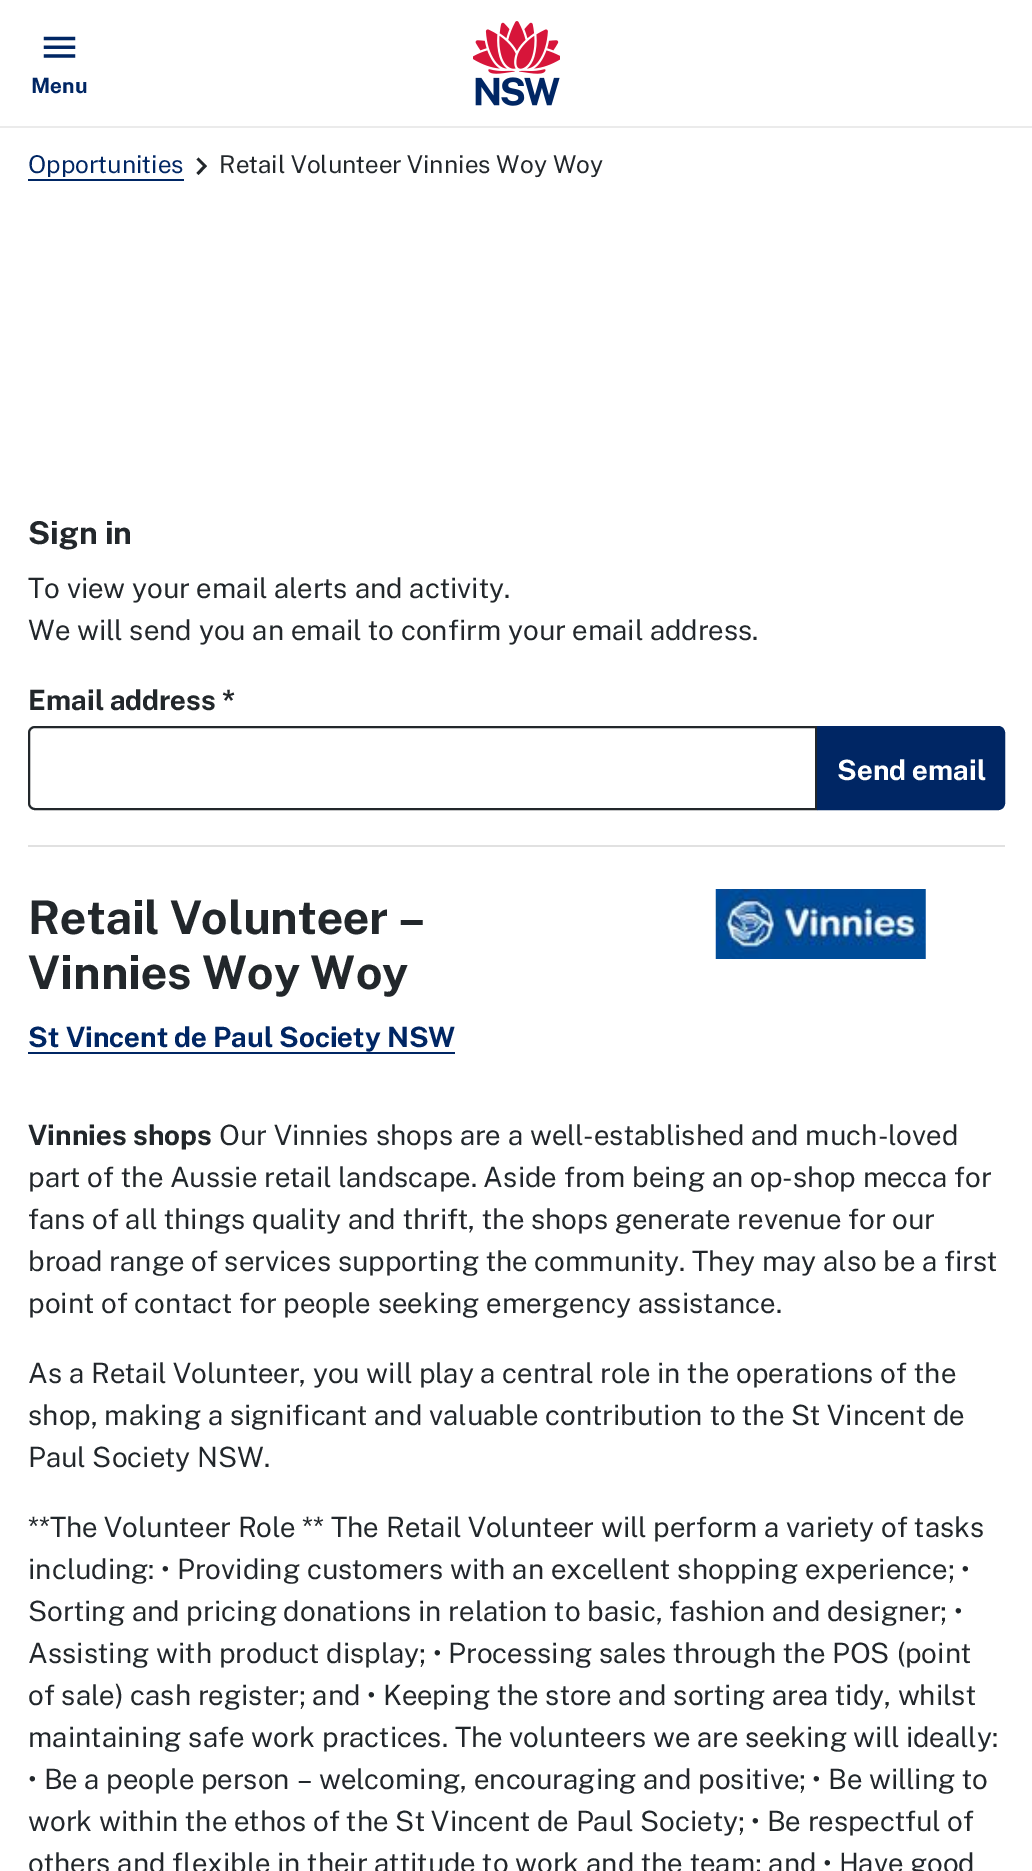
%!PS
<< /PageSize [1032 1871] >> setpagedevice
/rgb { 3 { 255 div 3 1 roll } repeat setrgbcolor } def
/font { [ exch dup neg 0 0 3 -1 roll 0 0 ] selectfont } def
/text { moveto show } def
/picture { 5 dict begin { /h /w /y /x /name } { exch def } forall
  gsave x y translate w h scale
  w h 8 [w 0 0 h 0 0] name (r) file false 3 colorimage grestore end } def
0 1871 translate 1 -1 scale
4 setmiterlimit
255 255 255 rgb
0 0 1032 1871 rectfill
235 235 235 rgb
0 126 1032 2 rectfill
(img_01.rgb) 43 36 33 22 picture
(img_02.rgb) 473 21 87 85 picture
0 38 100 rgb
28 179 156 2 rectfill
34 39 43 rgb
196.5 173 moveto 6.5 -7 rlineto -6.5 -6.5 rlineto 2 -2 rlineto 8.5 8.5 rlineto -8.5 9 rlineto closepath fill
225 225 225 rgb
28 845 977 2 rectfill
34 39 43 rgb
2 setlinewidth
35 727 moveto 781 0 rlineto 0 82 rlineto -781 0 rlineto -3.5 0 -6 -2.5 -6 -6 rcurveto 0 -70 rlineto 0 -3.5 2.5 -6 6 -6 rcurveto closepath stroke
0 38 100 rgb
819 728 moveto 179 0 rlineto 3 0 5 2 5 5 rcurveto 0 70 rlineto 0 3 -2 5 -5 5 rcurveto -179 0 rlineto closepath gsave fill grestore
4 setlinewidth
stroke
28 1052 427 2 rectfill
(img_03.rgb) 715 889 211 70 picture
/PublicSans-Bold 21 font
(Menu) 31 93 text
/PublicSans-Regular 24.5 font
(Opportunities) 28 173 text
34 39 43 rgb
(Retail Volunteer Vinnies Woy Woy) 219 173 text
/PublicSans-Bold 31.5 font
(Sign in) 28 544 text
/PublicSans-Regular 28 font
(To view your email alerts and activity.) 28 598 text
(We will send you an email to confirm your email address.) 28 640 text
/PublicSans-Bold 28 font
(Email address *) 28 710 text
255 255 255 rgb
(Send email) 837 780 text
/PublicSans-Bold 46.5 font
34 39 43 rgb
(Retail Volunteer –) 28 934 text
(Vinnies Woy Woy) 28 989 text
/PublicSans-Bold 28 font
0 38 100 rgb
(St Vincent de Paul Society NSW) 28 1047 text
34 39 43 rgb
(Vinnies shops) 28 1145 text
/PublicSans-Regular 28 font
(Our Vinnies shops are a well-established and much-loved) 219 1145 text
(part of the Aussie retail landscape. Aside from being an op-shop mecca for) 28 1187 text
(fans of all things quality and thrift, the shops generate revenue for our) 28 1229 text
(broad range of services supporting the community. They may also be a first) 28 1271 text
(point of contact for people seeking emergency assistance.) 28 1313 text
(As a Retail Volunteer, you will play a central role in the operations of the) 28 1383 text
(shop, making a significant and valuable contribution to the St Vincent de) 28 1425 text
(Paul Society NSW.) 28 1467 text
(**The Volunteer Role ** The Retail Volunteer will perform a variety of tasks) 28 1537 text
(including: • Providing customers with an excellent shopping experience; •) 28 1579 text
(Sorting and pricing donations in relation to basic, fashion and designer; •) 28 1621 text
(Assisting with product display; • Processing sales through the POS \(point) 28 1663 text
(of sale\) cash register; and • Keeping the store and sorting area tidy, whilst) 28 1705 text
(maintaining safe work practices. The volunteers we are seeking will ideally:) 28 1747 text
(• Be a people person – welcoming, encouraging and positive; • Be willing to) 28 1789 text
(work within the ethos of the St Vincent de Paul Society; • Be respectful of) 28 1831 text
(others and flexible in their attitude to work and the team; and • Have good) 28 1873 text
showpage
